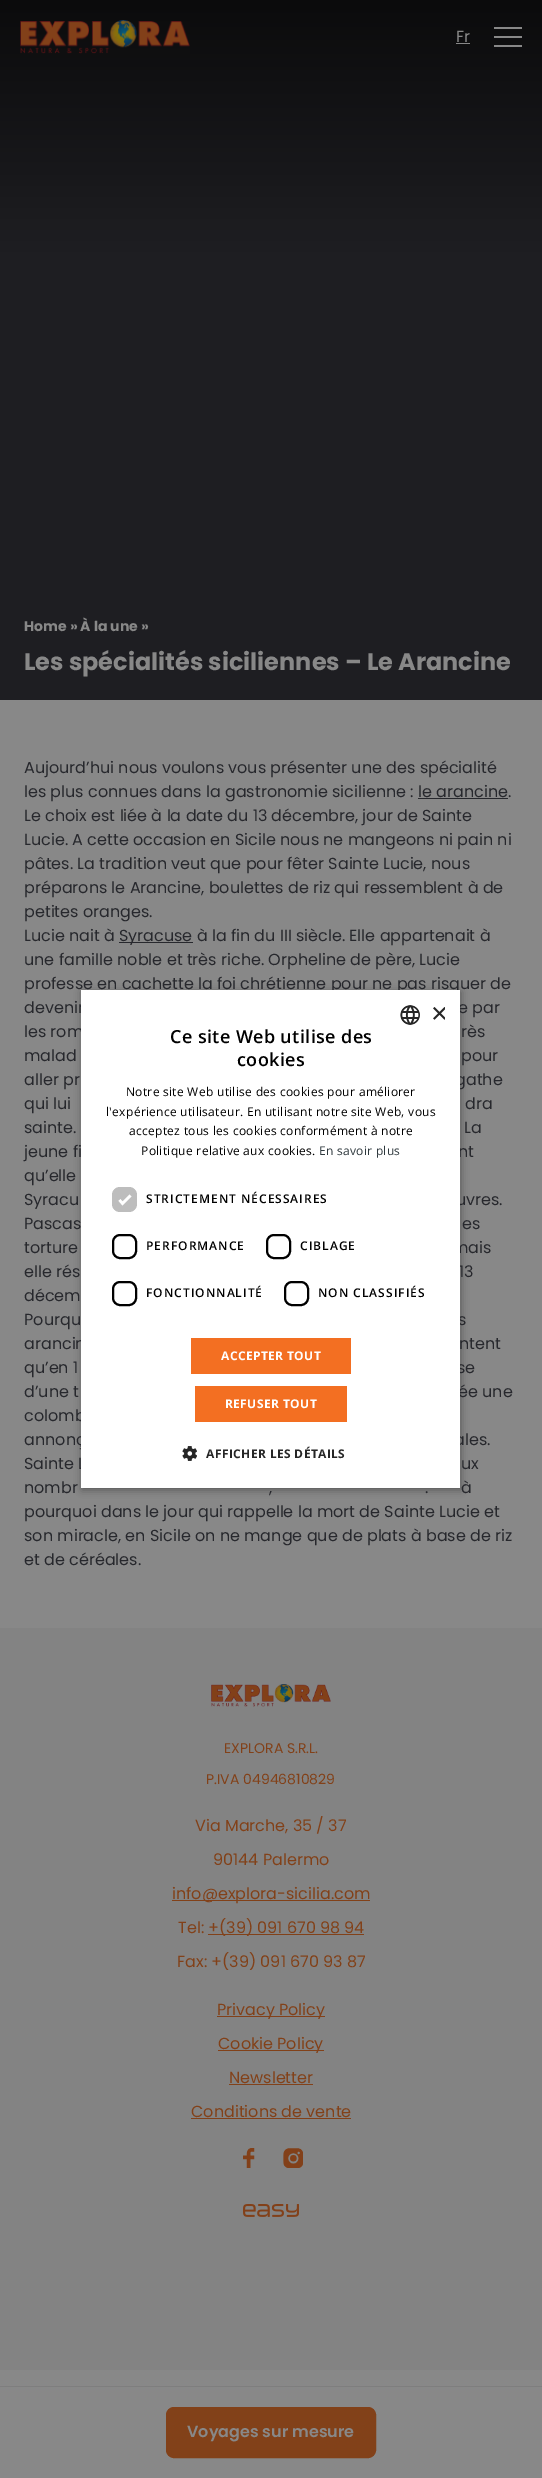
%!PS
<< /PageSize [542 2478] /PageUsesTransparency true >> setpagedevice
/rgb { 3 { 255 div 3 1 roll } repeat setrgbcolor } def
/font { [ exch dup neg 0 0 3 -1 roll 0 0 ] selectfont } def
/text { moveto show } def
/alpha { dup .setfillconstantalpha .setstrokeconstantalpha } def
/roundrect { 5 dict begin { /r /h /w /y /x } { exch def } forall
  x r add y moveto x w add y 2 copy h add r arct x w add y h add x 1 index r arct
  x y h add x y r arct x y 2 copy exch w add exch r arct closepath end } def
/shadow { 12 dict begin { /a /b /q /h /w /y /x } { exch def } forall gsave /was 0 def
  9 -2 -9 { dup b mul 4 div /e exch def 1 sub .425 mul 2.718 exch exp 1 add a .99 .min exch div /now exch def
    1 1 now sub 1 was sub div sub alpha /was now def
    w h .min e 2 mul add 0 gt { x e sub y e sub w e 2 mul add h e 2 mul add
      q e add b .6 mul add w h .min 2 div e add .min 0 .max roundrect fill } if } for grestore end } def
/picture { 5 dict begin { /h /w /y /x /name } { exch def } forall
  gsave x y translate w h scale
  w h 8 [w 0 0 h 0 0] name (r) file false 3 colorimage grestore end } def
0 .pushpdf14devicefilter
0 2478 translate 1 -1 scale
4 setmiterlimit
136 136 136 rgb
0 0 542 2478 rectfill
gsave 0 0 moveto 542 0 rlineto 0 700 rlineto -542 0 rlineto closepath clip newpath
<< /ShadingType 2 /ColorSpace /DeviceRGB /Coords [271 0 271 700] /Extend [true true] /Function << /FunctionType 3 /Domain [0 1] /Functions [<< /FunctionType 2 /Domain [0 1] /C0 [0.043 0.043 0.047] /C1 [0.118 0.118 0.133] /N 1 >> << /FunctionType 2 /Domain [0 1] /C0 [0.118 0.118 0.133] /C1 [0.118 0.118 0.133] /N 1 >>] /Bounds [0.36] /Encode [0 1 0 1] >> >> shfill grestore
(img_01.rgb) 20 20 170 34 picture
456 43 14 1 rectfill
494 27 28 2 rectfill
494 36 28 2 rectfill
494 45 28 2 rectfill
39 40 45 rgb
418 798 90 1 rectfill
119 942 74 1 rectfill
126 126 126 rgb
0 2386 542 1 rectfill
130 65 25 rgb
166.5 2407.5 209 50 7.5 roundrect gsave fill grestore
stroke
0 0 0 rgb
82 992 379 498 0 4 0.35 shadow
131 131 131 rgb
0 1628 542 742 rectfill
(img_04.rgb) 211 1684 120 23 picture
130 65 25 rgb
172 1900 198 1 rectfill
208 1934 156 1 rectfill
217 2016 108 1 rectfill
218 2050 106 1 rectfill
229 2084 84 1 rectfill
191 2118 160 1 rectfill
(img_05.rgb) 243 2148 12 20 picture
(img_06.rgb) 283 2148 20 20 picture
(img_07.rgb) 243 2204 56 13 picture
/Poppins-Regular 16 font
136 136 136 rgb
(Fr) 456 42 text
/Poppins-Bold 14 font
(Home » À la une ») 24 631 text
/Poppins-Bold 24 font
(Les spécialités siciliennes – Le Arancine) 24 670 text
/Poppins-Regular 16 font
39 40 45 rgb
(Aujourd’hui nous voulons vous présenter une des spécialité) 24 773 text
(les plus connues dans la gastronomie sicilienne : le arancine.) 24 797 text
(Le choix est liée à la date du 13 décembre, jour de Sainte) 24 821 text
(Lucie. A cette occasion en Sicile nous ne mangeons ni pain ni) 24 845 text
(pâtes. La tradition veut que pour fêter Sainte Lucie, nous) 24 869 text
(préparons le Arancine, boulettes de riz qui ressemblent à de) 24 893 text
(petites oranges.) 24 917 text
(Lucie nait à) 24 941 text
(Syracuse à la fin du III siècle. Elle appartenait à) 119 941 text
(une famille noble et très riche. Orpheline de père, Lucie) 24 965 text
(professe en cachette la foi chrétienne pour ne pas risquer de) 24 989 text
(devenir) 24 1013 text
(e par) 458 1013 text
(les rom) 24 1037 text
(rès) 461 1037 text
(malad) 24 1061 text
(pour) 461 1061 text
(aller pr) 24 1085 text
(gathe) 455 1085 text
(qui lui) 24 1109 text
(dra) 465 1109 text
(sainte.) 24 1133 text
(La) 464 1133 text
(jeune fi) 24 1157 text
(nt) 458 1157 text
(qu’elle) 24 1181 text
(Syracu) 24 1205 text
(uvres.) 456 1205 text
(Pascas) 24 1229 text
(es) 462 1229 text
(torture) 24 1253 text
(mais) 452 1253 text
(elle rés) 24 1277 text
(13) 459 1277 text
(décem) 24 1301 text
(Pourqu) 24 1325 text
(s) 458 1325 text
(arancin) 24 1349 text
(ntent) 459 1349 text
(qu’en 1) 24 1373 text
(se) 457 1373 text
(d’une t) 24 1397 text
(ée une) 458 1397 text
(colomb) 24 1421 text
(annonç) 24 1445 text
(ales.) 454 1445 text
(Sainte L) 24 1469 text
(ux) 461 1469 text
(nombr) 24 1493 text
(,) 269 1493 text
(.) 425 1493 text
(à) 461 1493 text
(pourquoi dans le jour qui rappelle la mort de Sainte Lucie et) 24 1517 text
(son miracle, en Sicile on ne mange que de plats à base de riz) 24 1541 text
(et de céréales.) 24 1565 text
/Poppins-SemiBold 16 font
136 136 136 rgb
(Voyages sur mesure) 187 2437 text
255 255 255 rgb
81 990 379 498 rectfill
(img_02.rgb) 400 1005 20 20 picture
gsave
430 1007 15 15 rectclip
/LiberationSans-Regular 29 font
38 38 38 rgb
(×) 431 1023 text
grestore
/OpenSans-SemiBold 18 font
0 0 0 rgb
170 1043 moveto 0.4 0 (Ce site Web utilise des) ashow
237 1066 moveto 0.4 0 (cookies) ashow
/OpenSans-Regular 12 font
126 1096 moveto 0.3 0 (Notre site Web utilise des cookies pour améliorer) ashow
106 1116 moveto 0.3 0 (l'expérience utilisateur. En utilisant notre site Web, vous) ashow
129 1135 moveto 0.3 0 (acceptez tous les cookies conformément à notre) ashow
141 1155 moveto 0.3 0 (Politique relative aux cookies.) ashow
46 56 61 rgb
319 1155 moveto 0.3 0 (En savoir plus) ashow
189 189 189 rgb
112 1187 25 25 8 roundrect fill
255 255 255 rgb
2.6 setlinewidth
119.5 1200 moveto 3 3.5 rlineto 8 -8 rlineto stroke
/OpenSans-SemiBold 12 font
0 0 0 rgb
146 1203 moveto 1 0 (STRICTEMENT NÉCESSAIRES) ashow
2 setlinewidth
113 1235 23 23 7 roundrect stroke
146 1250 moveto 1 0 (PERFORMANCE) ashow
267 1235 23 23 7 roundrect stroke
300 1250 moveto 1 0 (CIBLAGE) ashow
113 1282 23 23 7 roundrect stroke
146 1297 moveto 1 0 (FONCTIONNALITÉ) ashow
285 1282 23 23 7 roundrect stroke
318 1297 moveto 1 0 (NON CLASSIFIÉS) ashow
243 111 34 rgb
191 1338 160 36 rectfill
/OpenSans-Bold 12 font
255 255 255 rgb
221 1360 moveto 0.4 0 (ACCEPTER TOUT) ashow
243 111 34 rgb
195 1386 152 36 rectfill
255 255 255 rgb
225 1408 moveto 0.4 0 (REFUSER TOUT) ashow
(img_03.rgb) 182 1446 15 15 picture
38 38 38 rgb
206 1458 moveto 0.4 0 (AFFICHER LES DÉTAILS) ashow
/Poppins-Regular 14 font
130 65 25 rgb
(EXPLORA S.R.L.) 224 1753 text
(P.IVA 04946810829) 206 1784 text
/Poppins-Regular 16 font
(Via Marche, 35 / 37) 195 1831 text
(90144 Palermo) 213 1865 text
(info@explora-sicilia.com) 172 1899 text
(Tel:) 178 1933 text
(+\(39\) 091 670 98 94) 208 1933 text
(Fax: +\(39\) 091 670 93 87) 177 1967 text
(Privacy Policy) 217 2015 text
(Cookie Policy) 218 2049 text
(Newsletter) 229 2083 text
(Conditions de vente) 191 2117 text
.poppdf14devicefilter showpage
